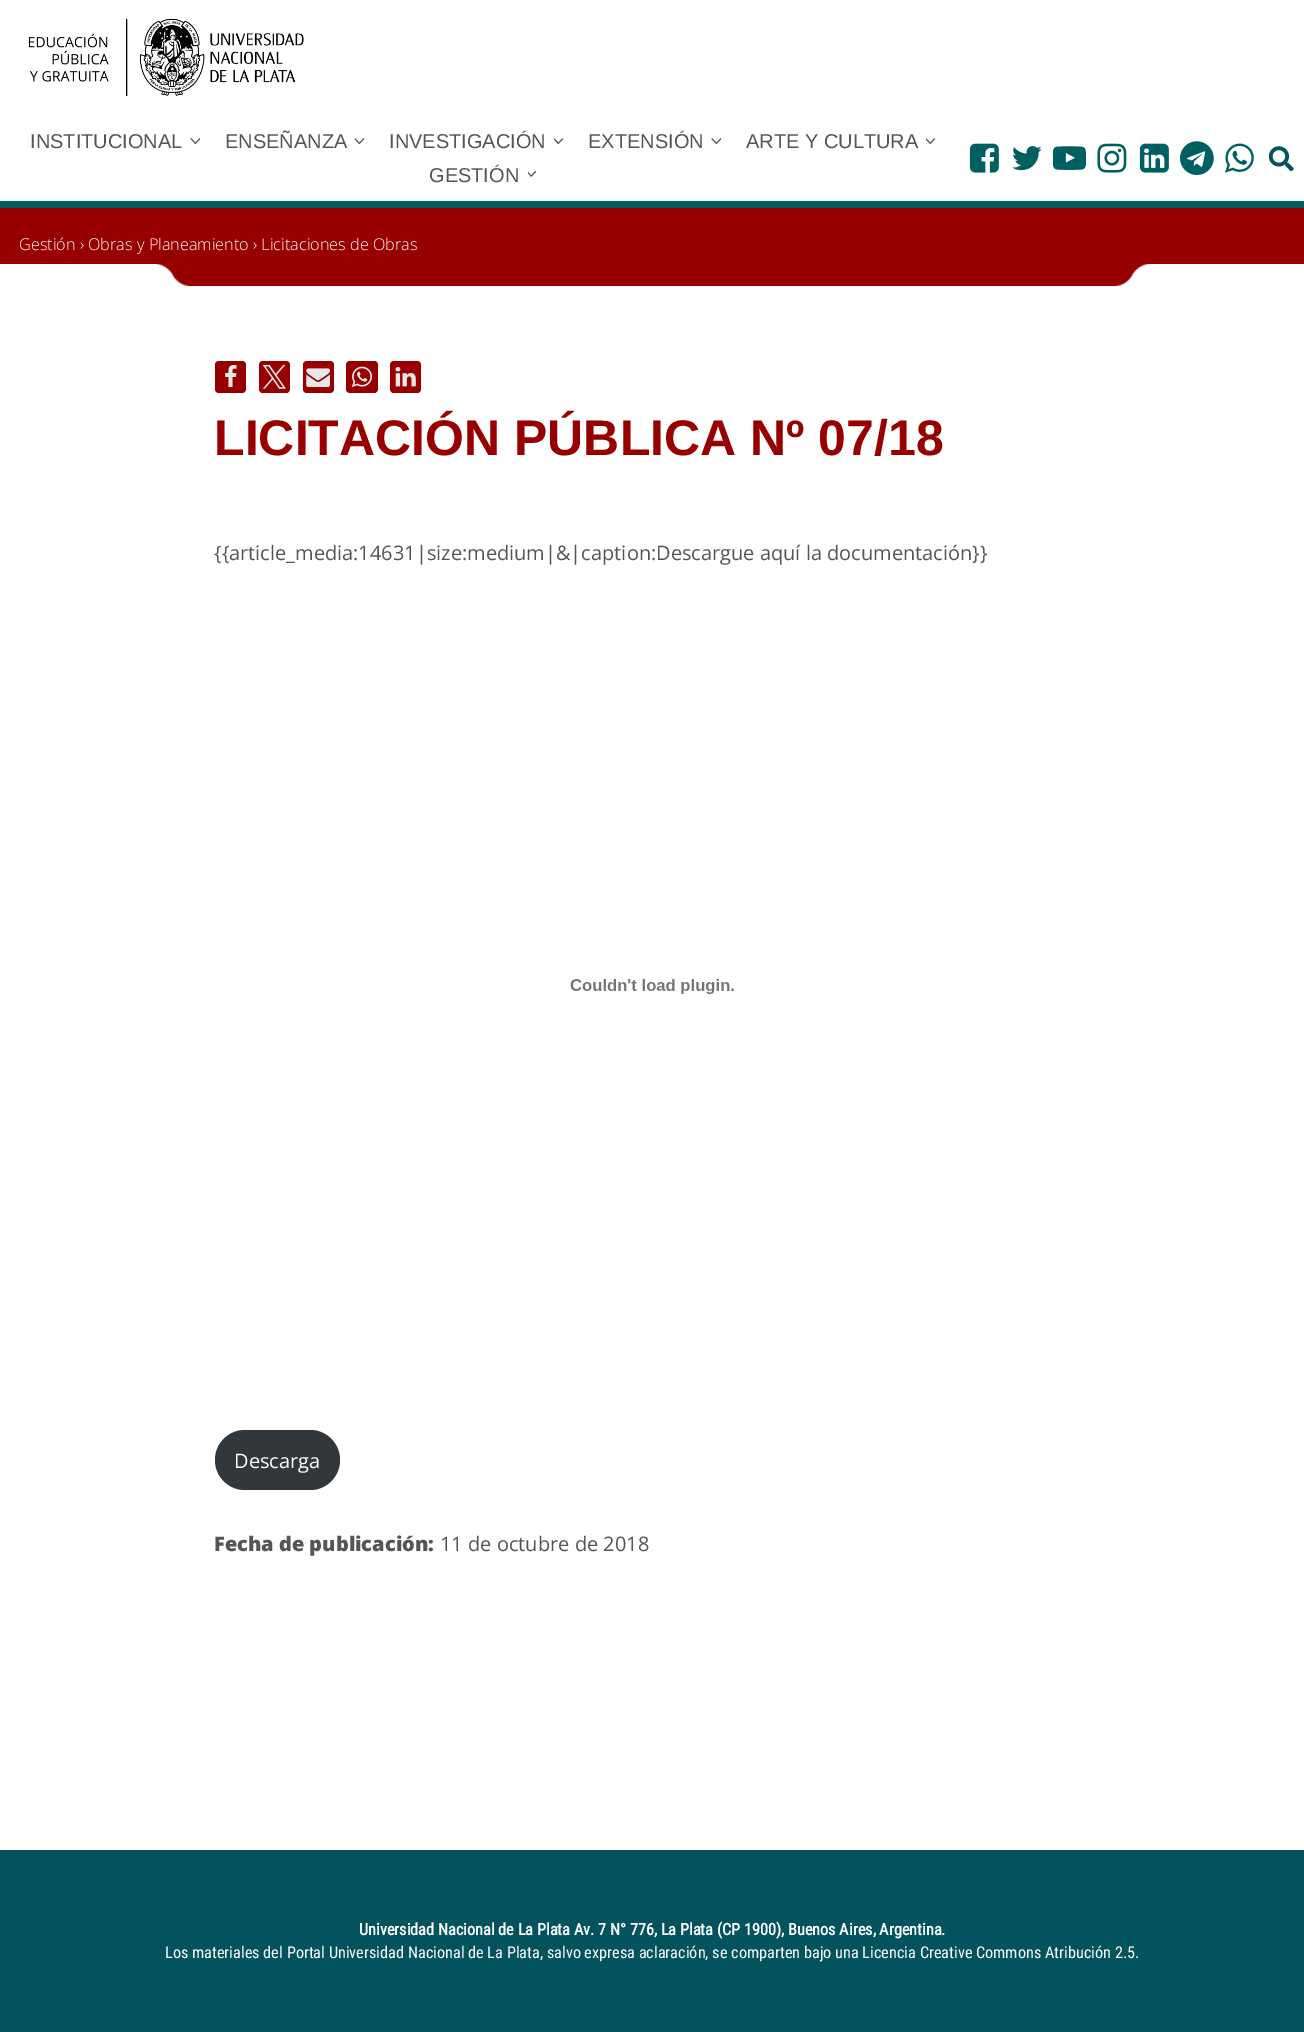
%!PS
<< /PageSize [1304 2032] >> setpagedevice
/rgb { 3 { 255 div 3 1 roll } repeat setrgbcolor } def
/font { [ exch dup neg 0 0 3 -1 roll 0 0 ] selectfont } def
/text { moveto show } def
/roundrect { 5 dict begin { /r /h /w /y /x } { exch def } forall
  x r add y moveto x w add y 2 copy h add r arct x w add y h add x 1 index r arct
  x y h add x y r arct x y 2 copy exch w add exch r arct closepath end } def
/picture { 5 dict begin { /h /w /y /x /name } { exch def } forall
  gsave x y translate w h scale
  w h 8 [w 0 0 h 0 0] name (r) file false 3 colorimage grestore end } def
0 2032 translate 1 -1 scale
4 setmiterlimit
255 255 255 rgb
0 0 1304 2032 rectfill
(img_01.rgb) 28 18 276 79 picture
(img_02.rgb) 190 138 10 6 picture
(img_03.rgb) 355 138 10 6 picture
(img_04.rgb) 554 138 10 6 picture
(img_05.rgb) 711 138 10 6 picture
(img_06.rgb) 926 138 10 6 picture
(img_07.rgb) 528 170 9 7 picture
(img_08.rgb) 969 143 30 30 picture
(img_09.rgb) 1012 146 30 25 picture
(img_10.rgb) 1053 146 33 24 picture
(img_11.rgb) 1097 143 30 30 picture
(img_12.rgb) 1139 143 30 30 picture
(img_13.rgb) 1180 141 34 34 picture
(img_14.rgb) 1225 143 29 30 picture
(img_15.rgb) 1269 146 25 25 picture
152 0 0 rgb
0 208 1304 56 rectfill
0 95 97 rgb
0 201 1304 7 rectfill
(img_16.rgb) 156 264 994 23 picture
152 0 0 rgb
215 361 31 32 4 roundrect fill
(img_17.rgb) 225 365 12 23 picture
259 361 31 32 4 roundrect fill
(img_18.rgb) 262 365 24 24 picture
303 361 31 32 4 roundrect fill
(img_19.rgb) 306 368 24 20 picture
346 361 32 32 4 roundrect fill
(img_20.rgb) 351 366 22 22 picture
390 361 31 32 4 roundrect fill
(img_21.rgb) 395 367 21 20 picture
(img_22.rgb) 570 979 164 15 picture
50 55 60 rgb
215 1430 125 60 30 roundrect fill
2 83 94 rgb
0 1850 1304 182 rectfill
/LiberationSans-Regular 20 font
85 85 85 rgb
(INSTITUCIONAL) 30 148 text
(ENSEÑANZA) 225 148 text
(INVESTIGACIÓN) 389 148 text
(EXTENSIÓN) 588 148 text
(ARTE Y CULTURA) 746 148 text
(GESTIÓN) 429 182 text
/OpenSans-Light 16.25 font
255 255 255 rgb
(Gestión › Obras y Planeamiento › Licitaciones de Obras) 19 250 text
/LiberationSans-Bold 50 font
152 0 0 rgb
(LICITACIÓN PÚBLICA Nº 07/18) 214 455 text
/OpenSans-Regular 20 font
85 85 85 rgb
({{article_media:14631|size:medium|&|caption:Descargue aquí la documentación}}) 214 560 text
255 255 255 rgb
(Descarga) 234 1468 text
/OpenSans-ExtraBold 20 font
85 85 85 rgb
(Fecha de publicación:) 214 1551 text
/OpenSans-Regular 20 font
(11 de octubre de 2018) 440 1551 text
/RobotoCondensed-Bold 16.25 font
255 255 255 rgb
(Universidad Nacional de La Plata Av. 7 N° 776, La Plata \(CP 1900\), Buenos Aires, Argentina.) 359 1935 text
/RobotoCondensed-Regular 16.25 font
(Los materiales del Portal Universidad Nacional de La Plata, salvo expresa aclaración, se comparten bajo una Licencia Creative Commons Atribución 2.5.) 165 1958 text
showpage
